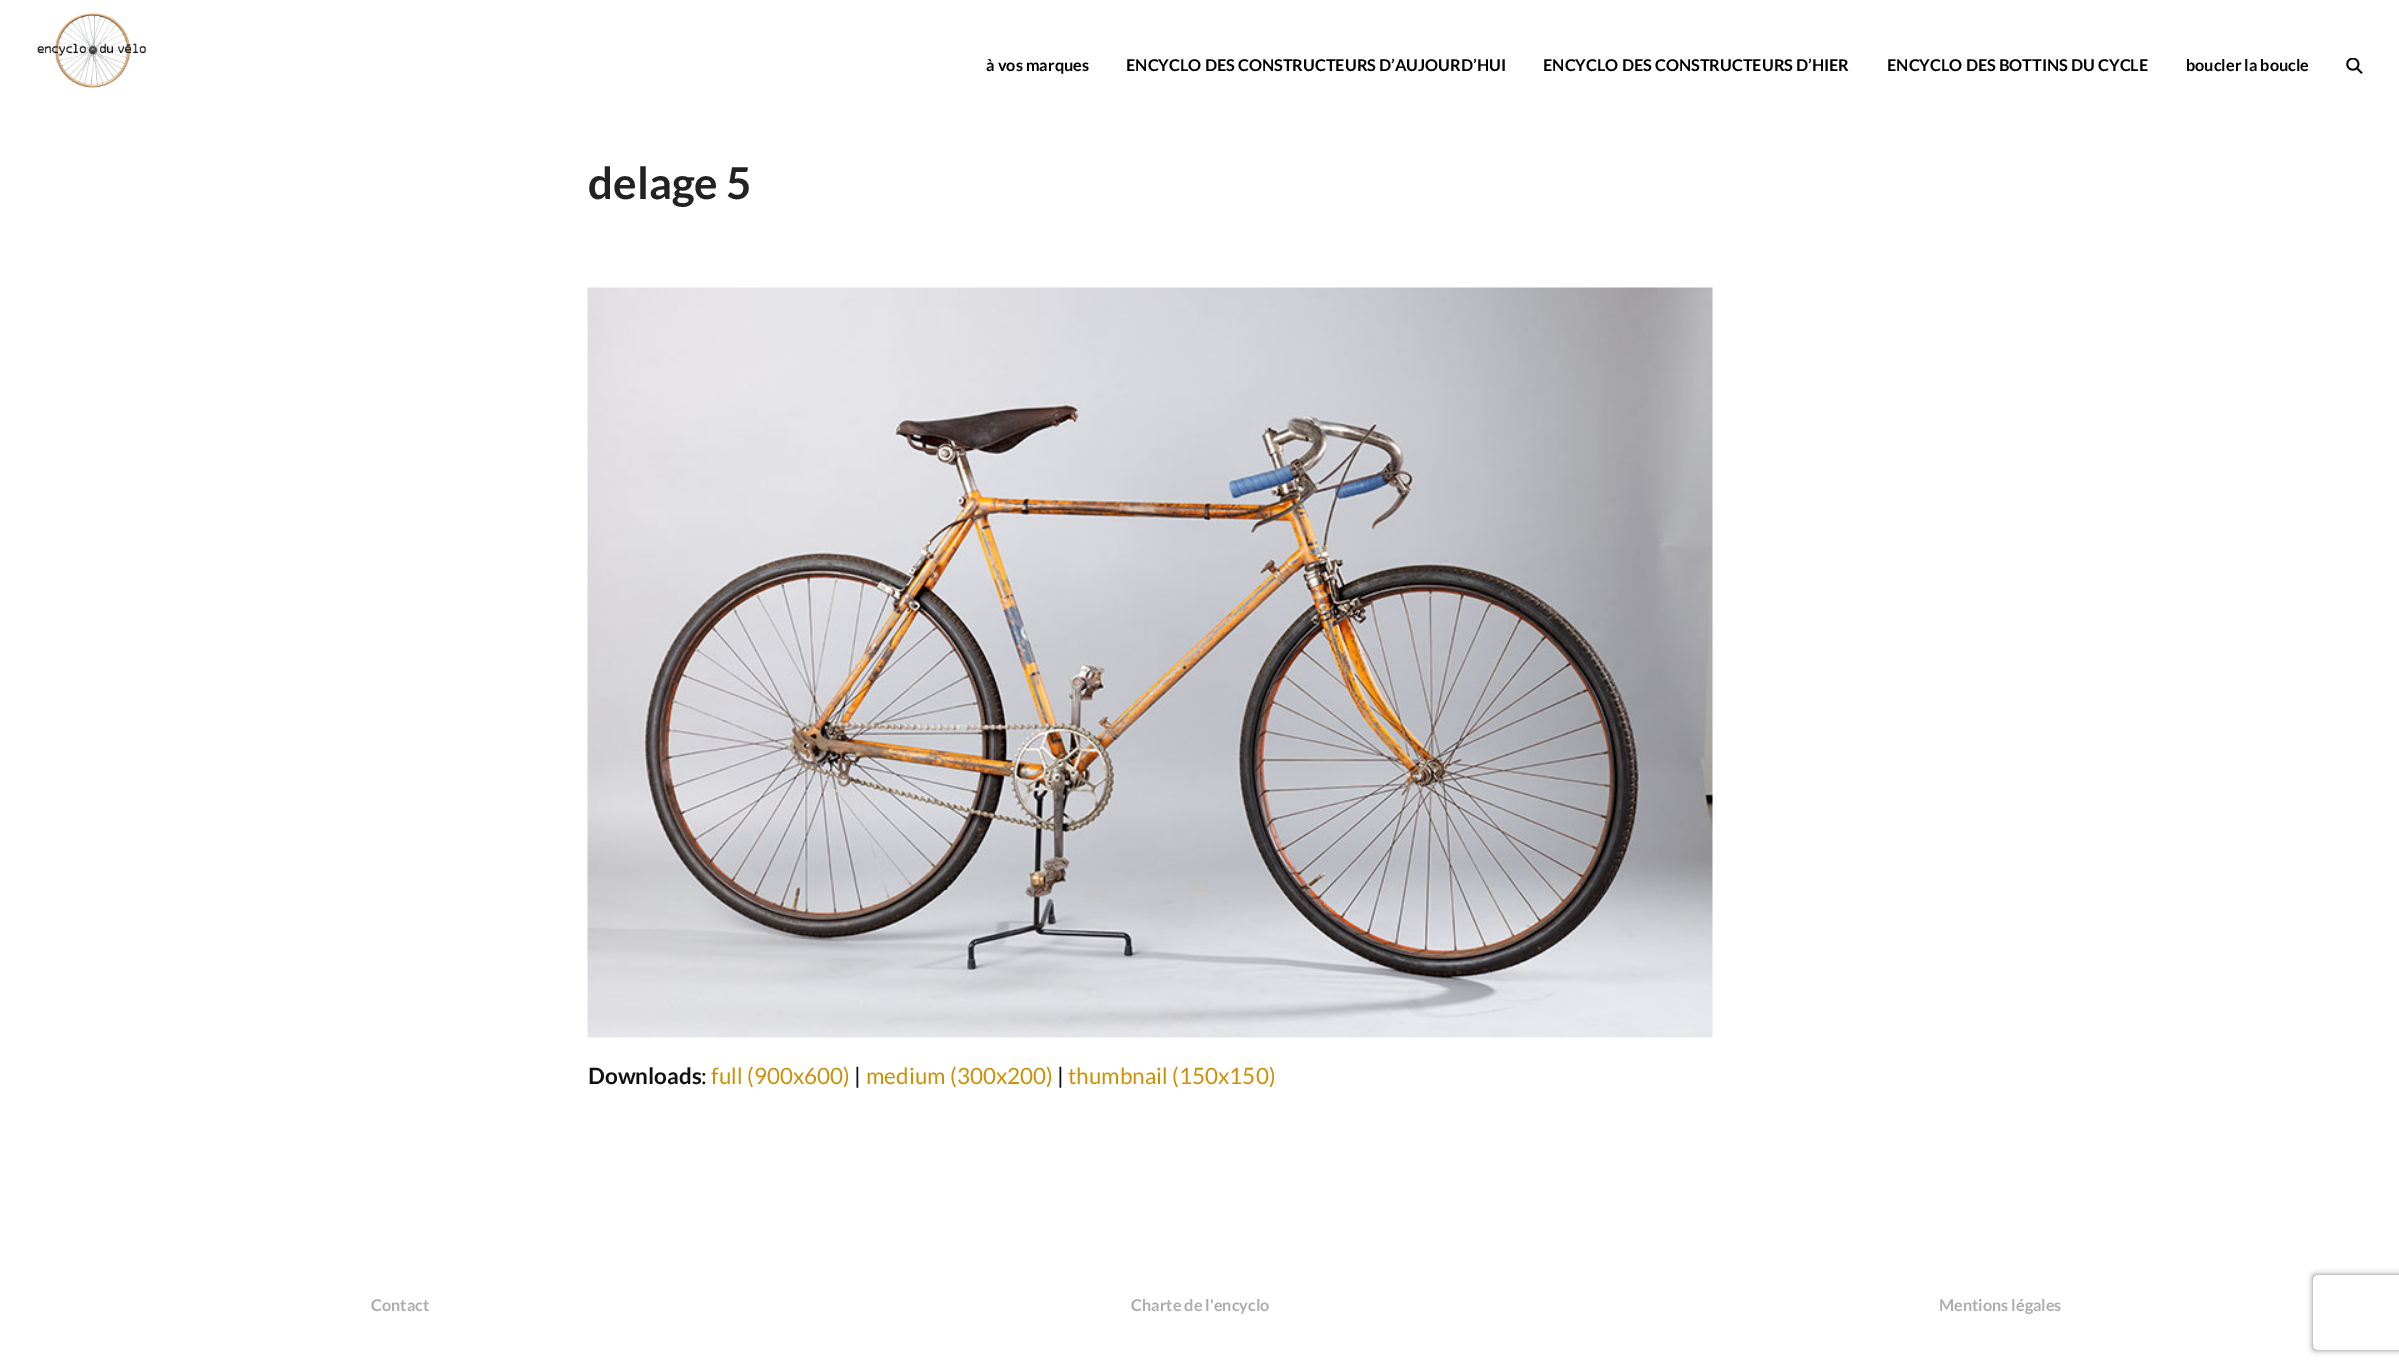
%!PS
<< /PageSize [2399 1367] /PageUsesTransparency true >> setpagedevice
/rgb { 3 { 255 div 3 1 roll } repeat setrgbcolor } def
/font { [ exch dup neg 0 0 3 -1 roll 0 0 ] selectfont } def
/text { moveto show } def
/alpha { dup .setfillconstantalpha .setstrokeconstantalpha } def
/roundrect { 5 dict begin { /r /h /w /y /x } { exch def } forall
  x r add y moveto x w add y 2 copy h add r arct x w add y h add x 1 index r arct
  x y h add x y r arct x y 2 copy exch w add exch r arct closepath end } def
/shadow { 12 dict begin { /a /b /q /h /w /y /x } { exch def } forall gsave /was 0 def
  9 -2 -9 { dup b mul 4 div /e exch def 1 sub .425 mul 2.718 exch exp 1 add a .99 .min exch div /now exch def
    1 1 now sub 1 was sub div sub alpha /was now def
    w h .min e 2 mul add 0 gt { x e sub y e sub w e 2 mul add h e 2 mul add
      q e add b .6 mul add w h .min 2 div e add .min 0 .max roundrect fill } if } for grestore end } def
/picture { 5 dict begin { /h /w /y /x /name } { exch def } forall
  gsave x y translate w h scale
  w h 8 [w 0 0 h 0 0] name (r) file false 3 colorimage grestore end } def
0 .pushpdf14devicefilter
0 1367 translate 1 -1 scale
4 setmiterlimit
255 255 255 rgb
0 0 2399 1367 rectfill
(img_01.rgb) 37 12 110 76 picture
(img_02.rgb) 2346 58 17 16 picture
(img_03.rgb) 587 287 1126 751 picture
gsave
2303 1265 moveto 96 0 rlineto 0 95 rlineto -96 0 rlineto closepath 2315.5 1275 moveto 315 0 rlineto 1.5 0 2.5 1 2.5 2.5 rcurveto 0 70 rlineto 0 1.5 -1 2.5 -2.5 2.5 rcurveto -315 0 rlineto -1.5 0 -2.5 -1 -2.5 -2.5 rcurveto 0 -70 rlineto 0 -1.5 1 -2.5 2.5 -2.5 rcurveto closepath eoclip newpath
128 128 128 rgb
2313 1275 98 75 2.5 3 1 shadow
grestore
/Lato-Bold 16.25 font
0 0 0 rgb
(à vos marques) 986 71 text
(ENCYCLO DES CONSTRUCTEURS D’AUJOURD’HUI) 1126 71 text
(ENCYCLO DES CONSTRUCTEURS D’HIER) 1543 71 text
(ENCYCLO DES BOTTINS DU CYCLE) 1887 71 text
(boucler la boucle) 2186 71 text
/Lato-Bold 44 font
34 34 34 rgb
(delage 5) 588 199 text
/Lato-Bold 22.5 font
17 17 17 rgb
(Downloads) 588 1084 text
/Lato-Regular 22.5 font
(:) 701 1084 text
206 143 8 rgb
(full \(900x600\)) 711 1084 text
17 17 17 rgb
(|) 854 1084 text
206 143 8 rgb
(medium \(300x200\)) 866 1084 text
17 17 17 rgb
(|) 1057 1084 text
206 143 8 rgb
(thumbnail \(150x150\)) 1068 1084 text
/Lato-Bold 16.25 font
173 173 173 rgb
(Contact) 371 1311 text
(Charte de l'encyclo) 1131 1311 text
(Mentions légales) 1939 1311 text
.poppdf14devicefilter showpage
